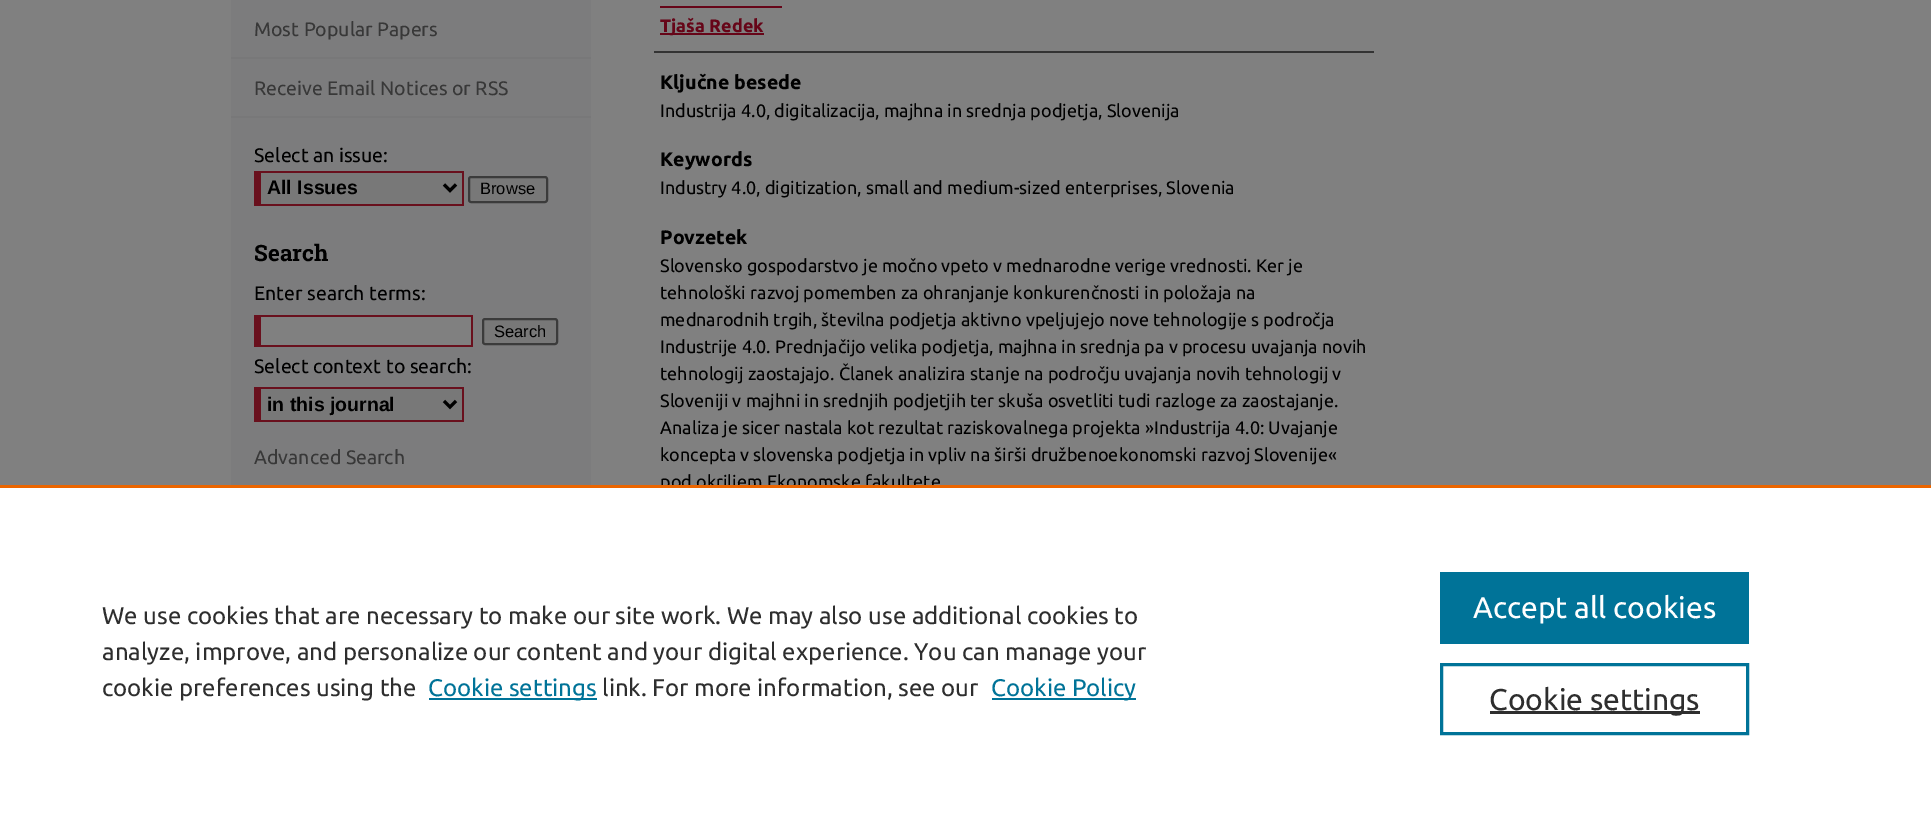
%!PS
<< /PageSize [1931 814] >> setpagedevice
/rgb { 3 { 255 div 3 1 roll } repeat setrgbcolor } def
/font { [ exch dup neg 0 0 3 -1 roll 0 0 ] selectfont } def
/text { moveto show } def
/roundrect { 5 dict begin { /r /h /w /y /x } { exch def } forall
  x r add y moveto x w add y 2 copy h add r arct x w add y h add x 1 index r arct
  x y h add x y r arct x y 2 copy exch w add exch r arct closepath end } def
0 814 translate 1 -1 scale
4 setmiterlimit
128 128 128 rgb
0 0 1931 814 rectfill
124 124 125 rgb
231 59 360 426 rectfill
231 0 360 57 rectfill
120 120 121 rgb
231 57 360 2 rectfill
231 116 360 2 rectfill
120 120 120 rgb
261 173 201 31 rectfill
105 16 29 rgb
254 171 210 2 rectfill
462 171 2 35 rectfill
254 204 210 2 rectfill
254 171 7 35 rectfill
0 0 0 rgb
3 setlinewidth
444 184.5 moveto 6 6 rlineto 6 -6 rlineto stroke
120 120 120 rgb
469 177 78 25 2 roundrect gsave fill grestore
59 59 59 rgb
2 setlinewidth
stroke
128 128 128 rgb
261 317 210 28 rectfill
105 16 29 rgb
254 315 219 2 rectfill
471 315 2 32 rectfill
254 345 219 2 rectfill
254 315 7 32 rectfill
120 120 120 rgb
483 319 74 25 2 roundrect gsave fill grestore
59 59 59 rgb
stroke
120 120 120 rgb
261 389 201 31 rectfill
105 16 29 rgb
254 387 210 2 rectfill
462 387 2 35 rectfill
254 420 210 2 rectfill
254 387 7 35 rectfill
0 0 0 rgb
3 setlinewidth
444 401 moveto 6 6 rlineto 6 -6 rlineto stroke
51 51 51 rgb
654 51 720 2 rectfill
102 5 24 rgb
660 6 122 2 rectfill
660 33 104 2 rectfill
/Ubuntu-Regular 19.5 font
56 56 56 rgb
(Most Popular Papers) 254 36 text
(Receive Email Notices or RSS) 254 95 text
0 0 0 rgb
(Select an issue:) 254 162 text
/LiberationSans-Bold 19.5 font
(All Issues) 267 194 text
/LiberationSans-Regular 16.5 font
(Browse) 480 194 text
/RobotoSlab-Bold 22.5 font
(Search) 254 261 text
/Ubuntu-Regular 19.5 font
(Enter search terms:) 254 300 text
/LiberationSans-Regular 16.5 font
(Search) 494 337 text
/Ubuntu-Regular 19.5 font
(Select context to search:) 254 373 text
/LiberationSans-Bold 19.5 font
(in this journal) 267 411 text
/Ubuntu-Regular 19.5 font
56 56 56 rgb
(Advanced Search) 254 464 text
/Ubuntu-Bold 18 font
102 5 24 rgb
(Tjaša Redek) 660 32 text
/Ubuntu-Bold 19.5 font
0 0 0 rgb
(Ključne besede) 660 89 text
/Ubuntu-Regular 18 font
(Industrija 4.0, digitalizacija, majhna in srednja podjetja, Slovenija) 660 117 text
/Ubuntu-Bold 19.5 font
(Keywords) 660 166 text
/Ubuntu-Regular 18 font
(Industry 4.0, digitization, small and medium-sized enterprises, Slovenia) 660 194 text
/Ubuntu-Bold 19.5 font
(Povzetek) 660 244 text
/Ubuntu-Regular 18 font
(Slovensko gospodarstvo je močno vpeto v mednarodne verige vrednosti. Ker je) 660 272 text
(tehnološki razvoj pomemben za ohranjanje konkurenčnosti in položaja na) 660 299 text
(mednarodnih trgih, številna podjetja aktivno vpeljujejo nove tehnologije s področja) 660 326 text
(Industrije 4.0. Prednjačijo velika podjetja, majhna in srednja pa v procesu uvajanja novih) 660 353 text
(tehnologij zaostajajo. Članek analizira stanje na področju uvajanja novih tehnologij v) 660 380 text
(Sloveniji v majhni in srednjih podjetjih ter skuša osvetliti tudi razloge za zaostajanje.) 660 407 text
(Analiza je sicer nastala kot rezultat raziskovalnega projekta »Industrija 4.0: Uvajanje) 660 434 text
(koncepta v slovenska podjetja in vpliv na širši družbenoekonomski razvoj Slovenije«) 660 461 text
(pod okriljem Ekonomske fakultete) 660 488 text
255 255 255 rgb
0 488 1931 326 rectfill
235 101 0 rgb
0 485 1931 3 rectfill
/Ubuntu-Regular 24 font
46 46 46 rgb
(We use cookies that are necessary to make our site work. We may also use additional cookies to) 102 624 text
(analyze, improve, and personalize our content and your digital experience. You can manage your) 102 660 text
(cookie preferences using the) 102 696 text
0 115 152 rgb
429 698 168 2 rectfill
(Cookie settings) 428 696 text
46 46 46 rgb
(link. For more information, see our) 602 696 text
0 115 152 rgb
992 698 144 2 rectfill
(Cookie Policy) 991 696 text
1440 572 309 72 rectfill
/Ubuntu-Regular 30 font
255 255 255 rgb
(Accept all cookies) 1473 618 text
0 115 152 rgb
1441.5 664.5 306 69 rectstroke
46 46 46 rgb
1490 711 210 3 rectfill
(Cookie settings) 1489 710 text
showpage
